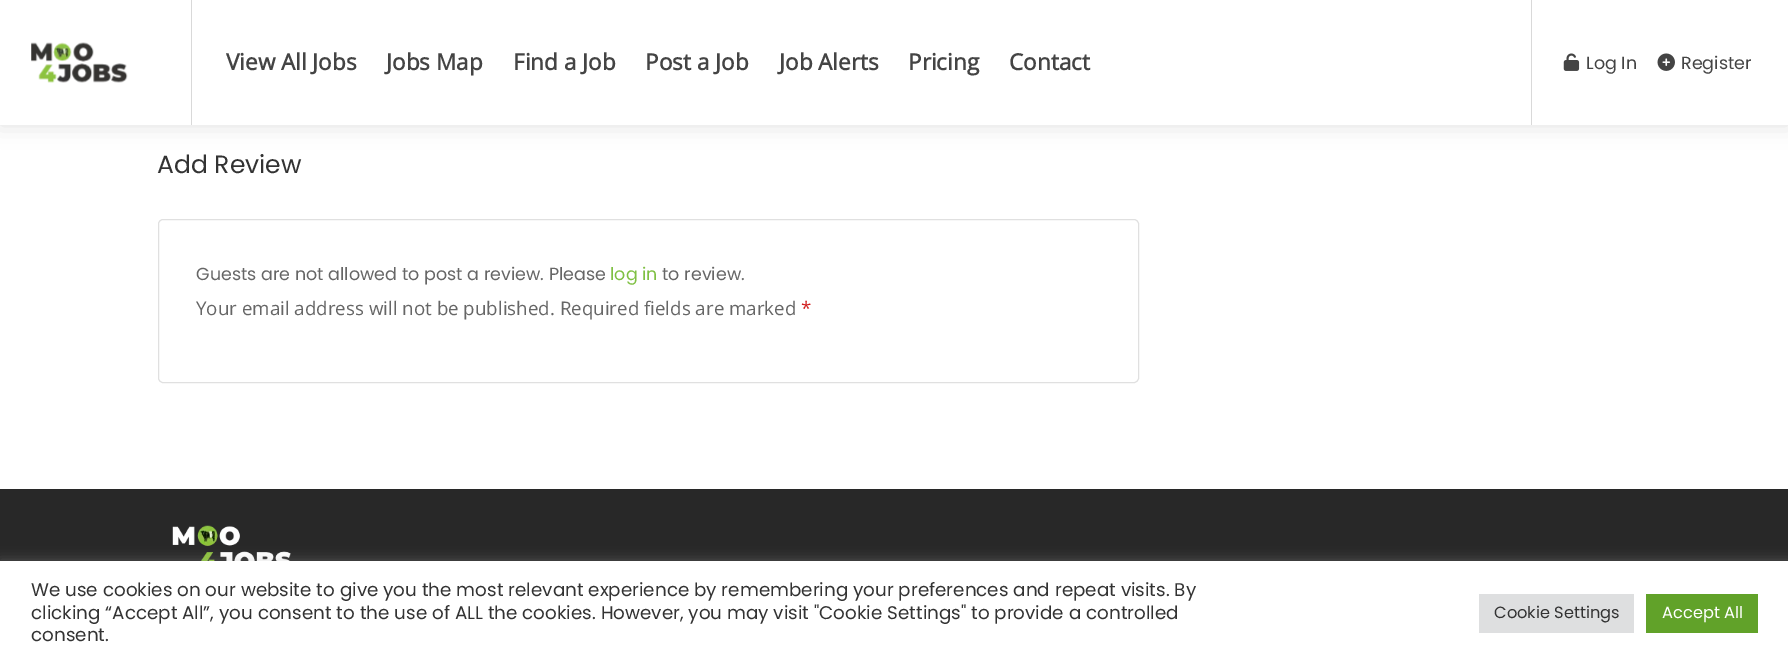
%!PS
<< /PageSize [1788 663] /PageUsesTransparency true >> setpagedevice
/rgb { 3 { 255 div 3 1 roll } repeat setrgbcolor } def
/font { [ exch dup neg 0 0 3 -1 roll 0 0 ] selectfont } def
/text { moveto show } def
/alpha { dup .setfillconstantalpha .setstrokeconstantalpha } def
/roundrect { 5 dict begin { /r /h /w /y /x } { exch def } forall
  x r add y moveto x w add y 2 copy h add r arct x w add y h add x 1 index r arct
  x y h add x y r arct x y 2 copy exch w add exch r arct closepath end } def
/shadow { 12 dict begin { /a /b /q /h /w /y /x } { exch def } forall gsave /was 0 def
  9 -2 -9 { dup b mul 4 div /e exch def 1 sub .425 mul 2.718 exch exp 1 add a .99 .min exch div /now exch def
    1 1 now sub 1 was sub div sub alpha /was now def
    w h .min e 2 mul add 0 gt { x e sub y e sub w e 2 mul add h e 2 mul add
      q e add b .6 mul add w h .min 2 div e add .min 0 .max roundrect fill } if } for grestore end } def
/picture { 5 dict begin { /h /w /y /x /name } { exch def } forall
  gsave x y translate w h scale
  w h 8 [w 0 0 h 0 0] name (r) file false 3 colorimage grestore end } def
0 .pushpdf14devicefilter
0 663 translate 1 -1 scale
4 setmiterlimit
255 255 255 rgb
0 0 1788 663 rectfill
0 0 0 rgb
0 0 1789 125 0 11 0.12 shadow
255 255 255 rgb
0 0 1788 125 rectfill
217 217 217 rgb
191 0 1 125 rectfill
(img_01.rgb) 31 42 97 41 picture
1531 0 1 125 rectfill
(img_02.rgb) 1563 53 17 18 picture
(img_03.rgb) 1657 53 18 18 picture
224 224 224 rgb
158.5 219.5 980 163 4.5 roundrect stroke
40 40 40 rgb
0 489 1788 72 rectfill
(img_04.rgb) 172 525 119 36 picture
172 171 171 rgb
0 560 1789 103 0 6 0.3 shadow
255 255 255 rgb
0 561 1788 102 rectfill
222 223 224 rgb
1479 594 155 39 rectfill
97 162 41 rgb
1646 594 112 39 rectfill
/OpenSans-Bold 22.5 font
68 68 68 rgb
(View All Jobs) 226 70 text
(Jobs Map) 386 70 text
(Find a Job) 513 70 text
(Post a Job) 645 70 text
(Job Alerts) 779 70 text
(Pricing) 908 70 text
(Contact) 1009 70 text
/Poppins-Regular 17.5 font
(Log In) 1586 69 text
(Register) 1681 69 text
/Poppins-Regular 25 font
51 51 51 rgb
(Add Review) 157 173 text
/Poppins-Regular 17.5 font
102 102 102 rgb
(Guests are not allowed to post a review. Please) 196 280 text
127 192 67 rgb
(log in) 610 280 text
102 102 102 rgb
(to review.) 662 280 text
/OpenSans-Regular 18.75 font
(Your email address will not be published. Required fields are marked) 196 315 text
209 28 28 rgb
(*) 801 315 text
/Poppins-Regular 18.33 font
51 51 51 rgb
(We use cookies on our website to give you the most relevant experience by remembering your preferences and repeat visits. By) 31 596 text
(clicking “Accept All”, you consent to the use of ALL the cookies. However, you may visit "Cookie Settings" to provide a controlled) 31 619 text
(consent.) 31 641 text
/Poppins-Regular 16.25 font
(Cookie Settings) 1494 618 text
255 255 255 rgb
(Accept All) 1662 618 text
.poppdf14devicefilter showpage
